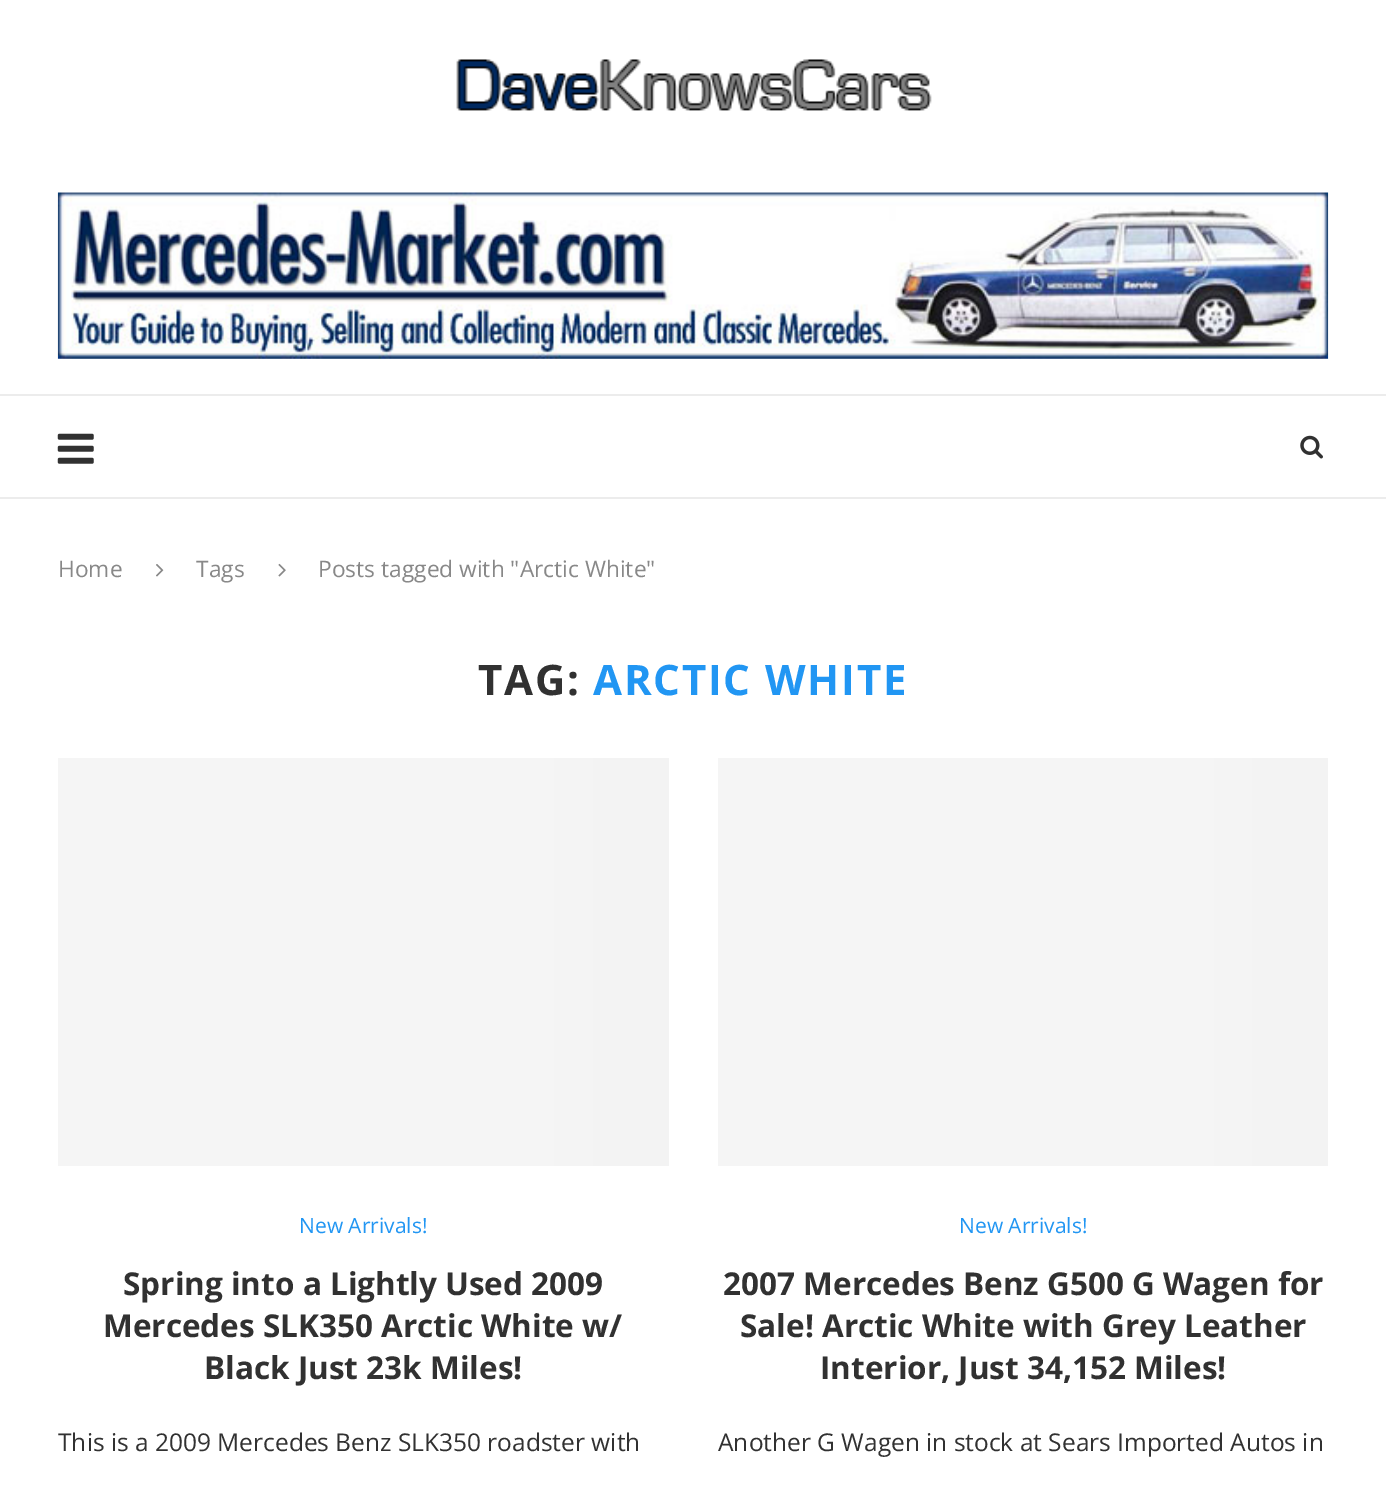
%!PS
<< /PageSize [1386 1485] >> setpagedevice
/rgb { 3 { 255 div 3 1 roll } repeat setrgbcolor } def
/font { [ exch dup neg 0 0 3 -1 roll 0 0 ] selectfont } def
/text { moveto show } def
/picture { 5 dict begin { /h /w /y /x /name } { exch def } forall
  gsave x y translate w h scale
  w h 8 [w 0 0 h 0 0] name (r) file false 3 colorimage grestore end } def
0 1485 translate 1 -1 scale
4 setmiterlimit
255 255 255 rgb
0 0 1386 1485 rectfill
(img_01.rgb) 456 59 476 52 picture
(img_02.rgb) 57 192 1272 167 picture
236 236 236 rgb
0 394 1386 2 rectfill
0 497 1386 2 rectfill
(img_03.rgb) 57 433 37 31 picture
(img_04.rgb) 1300 435 23 24 picture
(img_05.rgb) 156 564 8 13 picture
(img_06.rgb) 278 563 8 14 picture
gsave 58 758 moveto 611 0 rlineto 0 408 rlineto -611 0 rlineto closepath clip newpath
<< /ShadingType 2 /ColorSpace /DeviceRGB /Coords [1151 962 -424 962] /Extend [true true] /Function << /FunctionType 3 /Domain [0 1] /Functions [<< /FunctionType 2 /Domain [0 1] /C0 [0.961 0.961 0.961] /C1 [0.937 0.937 0.937] /N 1 >> << /FunctionType 2 /Domain [0 1] /C0 [0.937 0.937 0.937] /C1 [0.961 0.961 0.961] /N 1 >> << /FunctionType 2 /Domain [0 1] /C0 [0.961 0.961 0.961] /C1 [0.961 0.961 0.961] /N 1 >>] /Bounds [0.15 0.4] /Encode [0 1 0 1 0 1] >> >> shfill grestore
gsave 718 758 moveto 610 0 rlineto 0 408 rlineto -610 0 rlineto closepath clip newpath
<< /ShadingType 2 /ColorSpace /DeviceRGB /Coords [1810 962 235 962] /Extend [true true] /Function << /FunctionType 3 /Domain [0 1] /Functions [<< /FunctionType 2 /Domain [0 1] /C0 [0.961 0.961 0.961] /C1 [0.937 0.937 0.937] /N 1 >> << /FunctionType 2 /Domain [0 1] /C0 [0.937 0.937 0.937] /C1 [0.961 0.961 0.961] /N 1 >> << /FunctionType 2 /Domain [0 1] /C0 [0.961 0.961 0.961] /C1 [0.961 0.961 0.961] /N 1 >>] /Bounds [0.15 0.4] /Encode [0 1 0 1 0 1] >> >> shfill grestore
/OpenSans-Regular 22.75 font
136 136 136 rgb
(Home) 58 577 text
(Tags) 196 577 text
(Posts tagged with "Arctic White") 318 577 text
/OpenSans-Bold 42 font
49 49 49 rgb
478 695 moveto 1.75 0 (TAG:) ashow
33 150 243 rgb
593 695 moveto 1.75 0 (ARCTIC WHITE) ashow
/OpenSans-Regular 21 font
(New Arrivals!) 299 1233 text
/OpenSans-Bold 31.5 font
49 49 49 rgb
(Spring into a Lightly Used 2009) 123 1295 text
(Mercedes SLK350 Arctic White w/) 103 1337 text
(Black Just 23k Miles!) 204 1379 text
/OpenSans-Regular 24.5 font
(This is a 2009 Mercedes Benz SLK350 roadster with) 58 1451 text
/OpenSans-Regular 21 font
33 150 243 rgb
(New Arrivals!) 959 1233 text
/OpenSans-Bold 31.5 font
49 49 49 rgb
(2007 Mercedes Benz G500 G Wagen for) 723 1295 text
(Sale! Arctic White with Grey Leather) 740 1337 text
(Interior, Just 34,152 Miles!) 820 1379 text
/OpenSans-Regular 24.5 font
(Another G Wagen in stock at Sears Imported Autos in) 718 1451 text
showpage
